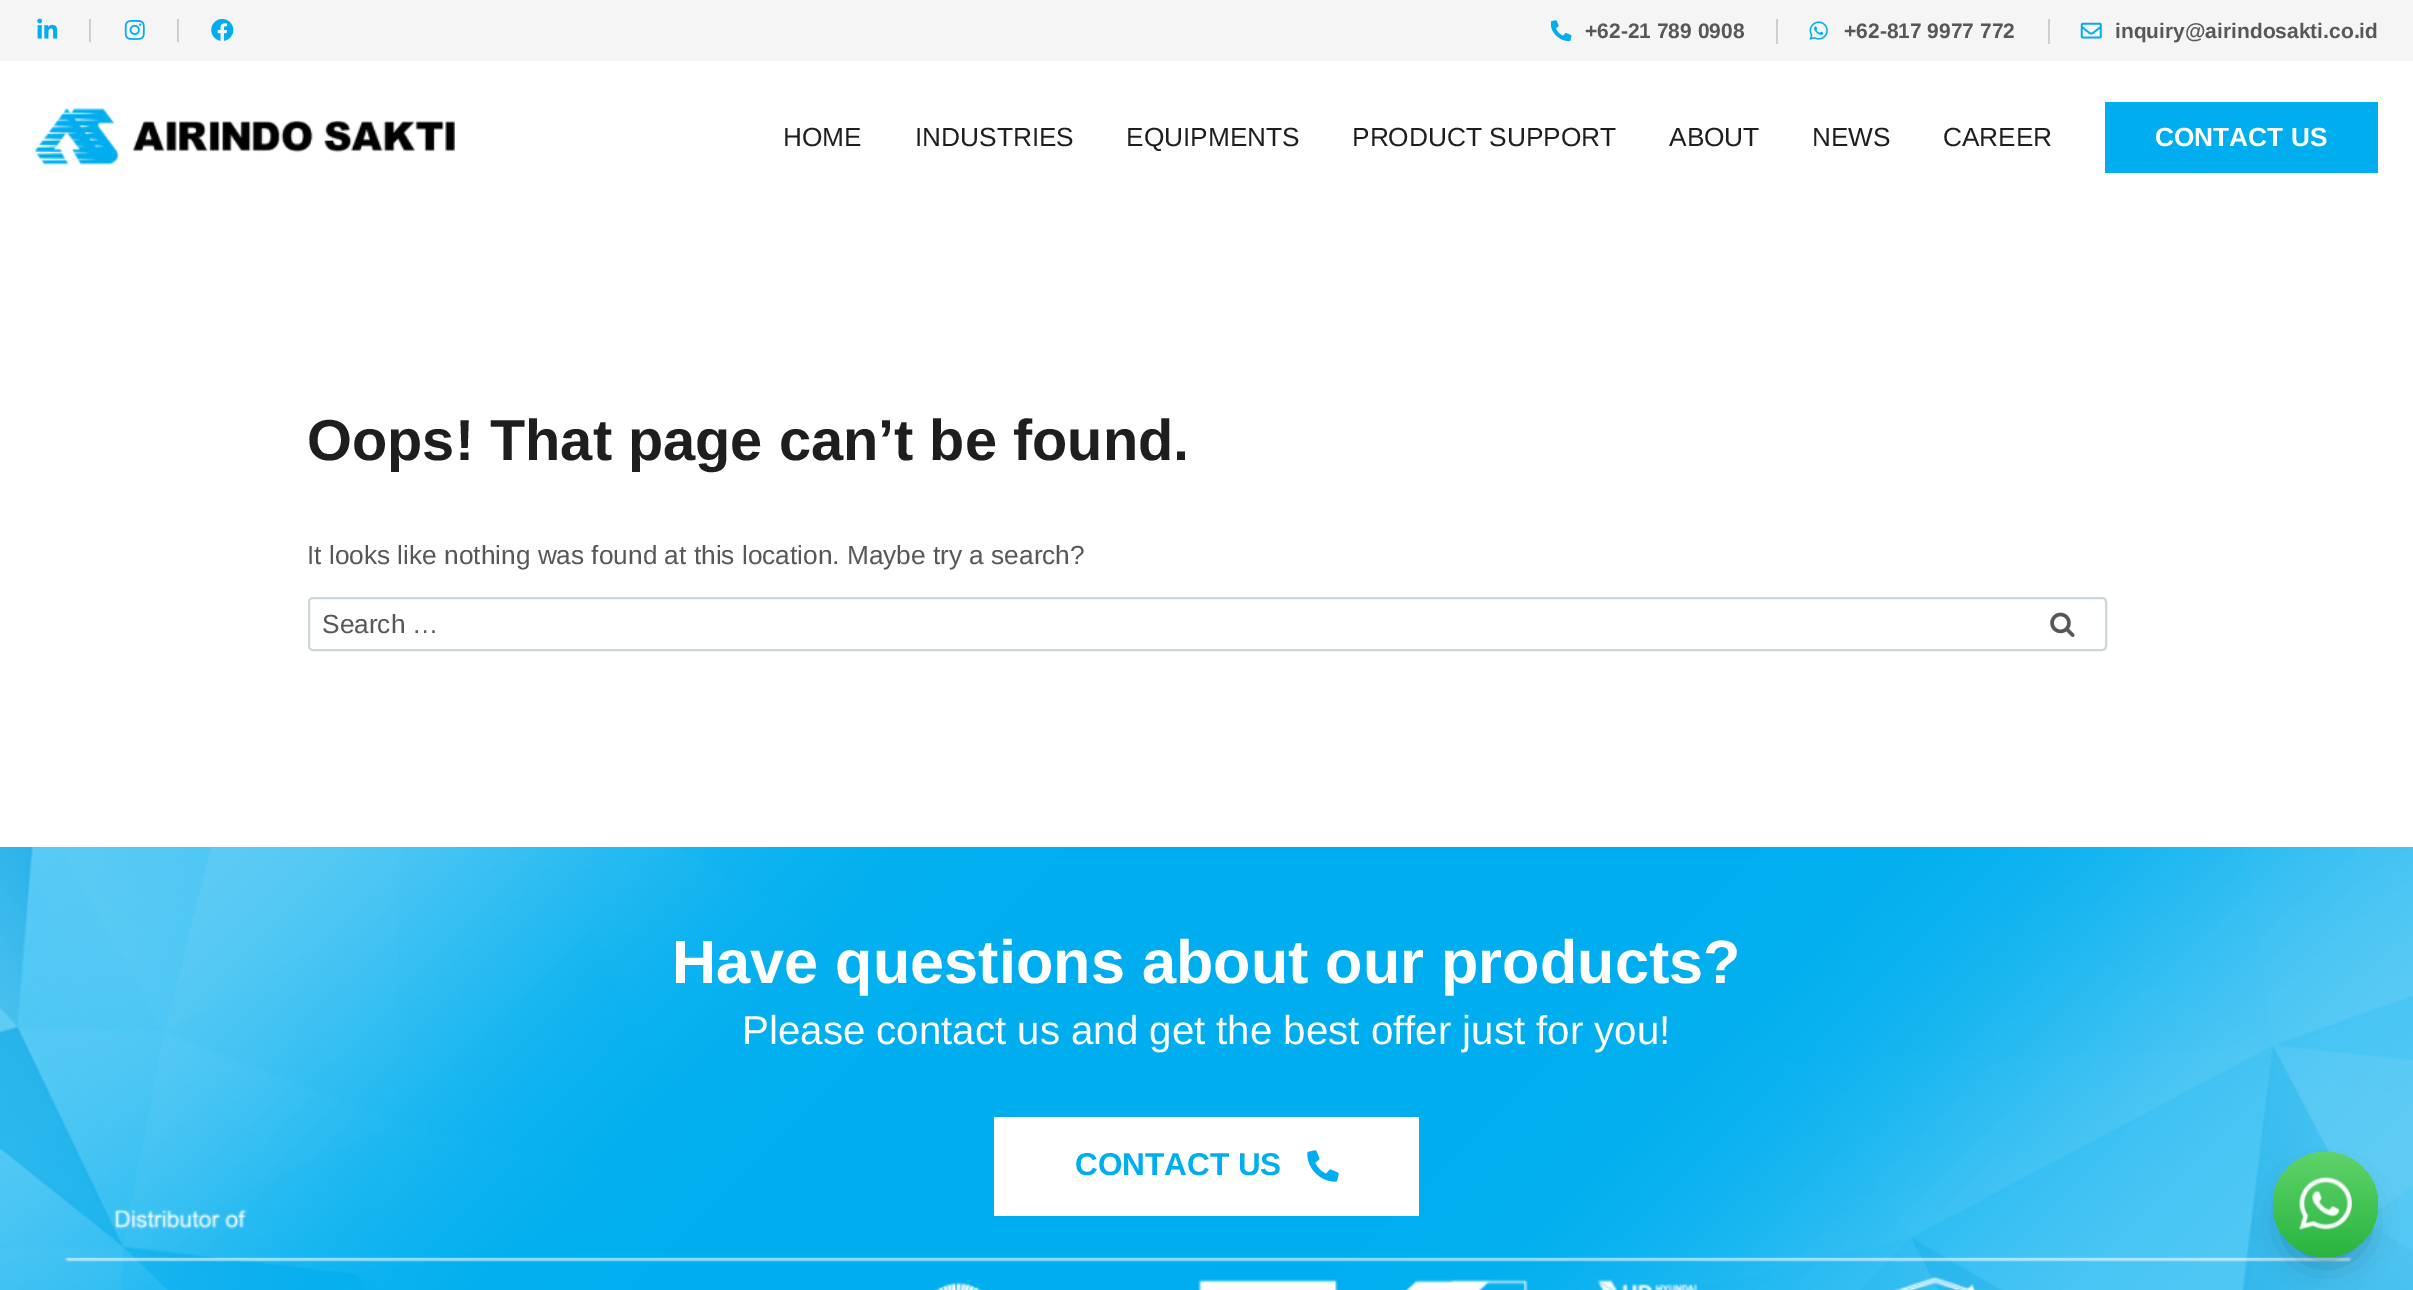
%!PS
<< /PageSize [2413 1290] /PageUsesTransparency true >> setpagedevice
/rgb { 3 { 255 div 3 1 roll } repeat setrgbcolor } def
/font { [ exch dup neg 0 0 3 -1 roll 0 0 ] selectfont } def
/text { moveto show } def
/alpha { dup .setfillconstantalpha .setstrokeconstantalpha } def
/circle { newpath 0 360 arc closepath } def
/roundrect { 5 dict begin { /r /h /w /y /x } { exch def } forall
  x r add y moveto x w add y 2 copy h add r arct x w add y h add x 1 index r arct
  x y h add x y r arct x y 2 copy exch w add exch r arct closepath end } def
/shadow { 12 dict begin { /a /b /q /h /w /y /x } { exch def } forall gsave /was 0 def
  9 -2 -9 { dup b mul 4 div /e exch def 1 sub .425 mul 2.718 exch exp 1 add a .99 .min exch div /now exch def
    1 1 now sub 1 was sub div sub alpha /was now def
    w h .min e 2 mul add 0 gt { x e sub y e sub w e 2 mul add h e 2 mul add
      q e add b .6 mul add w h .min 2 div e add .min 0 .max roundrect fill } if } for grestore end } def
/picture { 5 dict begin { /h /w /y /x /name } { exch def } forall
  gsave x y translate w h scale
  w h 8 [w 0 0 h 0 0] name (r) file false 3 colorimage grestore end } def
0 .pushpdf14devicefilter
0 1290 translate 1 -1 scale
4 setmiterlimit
255 255 255 rgb
0 0 2413 1290 rectfill
245 245 245 rgb
0 0 2413 61 rectfill
(img_01.rgb) 37 18 21 21 picture
206 206 206 rgb
89 19 2 23 rectfill
(img_02.rgb) 124 20 21 20 picture
177 19 2 23 rectfill
(img_03.rgb) 211 18 23 23 picture
(img_04.rgb) 1551 20 21 22 picture
1776 19 2 25 rectfill
(img_05.rgb) 1809 21 19 19 picture
2048 19 2 25 rectfill
(img_06.rgb) 2080 22 22 17 picture
(img_07.rgb) 35 108 420 57 picture
0 173 239 rgb
2105 102 273 71 rectfill
203 213 224 rgb
2 setlinewidth
309 598 1797 52 4 roundrect stroke
(img_08.rgb) 2050 612 25 25 picture
(img_09.rgb) 0 847 2413 443 picture
255 255 255 rgb
994 1117 425 99 rectfill
(img_10.rgb) 1307 1150 32 32 picture
0 0 0 rgb
2291 1187 70 70 35 17.5 0.35 shadow
gsave 2325.5 1204.5 52.5 circle clip newpath
<< /ShadingType 2 /ColorSpace /DeviceRGB /Coords [2326 1257 2326 1152] /Extend [true true] /Function << /FunctionType 2 /Domain [0 1] /C0 [0.161 0.706 0.247] /C1 [0.376 0.827 0.42] /N 1 >> >> shfill grestore
(img_11.rgb) 2299 1177 53 53 picture
/LiberationSans-Bold 21 font
87 87 87 rgb
(+62-21 789 0908) 1585 38 text
(+62-817 9977 772) 1844 38 text
(inquiry@airindosakti.co.id) 2115 38 text
/LiberationSans-Regular 26.25 font
30 30 30 rgb
(HOME) 783 146 text
(INDUSTRIES) 915 146 text
(EQUIPMENTS) 1126 146 text
(PRODUCT SUPPORT) 1352 146 text
(ABOUT) 1669 146 text
(NEWS) 1812 146 text
(CAREER) 1943 146 text
/LiberationSans-Bold 26.25 font
255 255 255 rgb
(CONTACT US) 2155 146 text
/LiberationSans-Bold 57.75 font
30 30 30 rgb
(Oops! That page can’t be found.) 307 460 text
/LiberationSans-Regular 26.25 font
87 87 87 rgb
(It looks like nothing was found at this location. Maybe try a search?) 307 564 text
(Search …) 322 633 text
/LiberationSans-Bold 61.25 font
255 255 255 rgb
(Have questions about our products?) 672 983 text
/LiberationSans-Regular 40.25 font
(Please contact us and get the best offer just for you!) 742 1044 text
/LiberationSans-Bold 31.5 font
0 173 239 rgb
(CONTACT US) 1075 1175 text
.poppdf14devicefilter showpage
